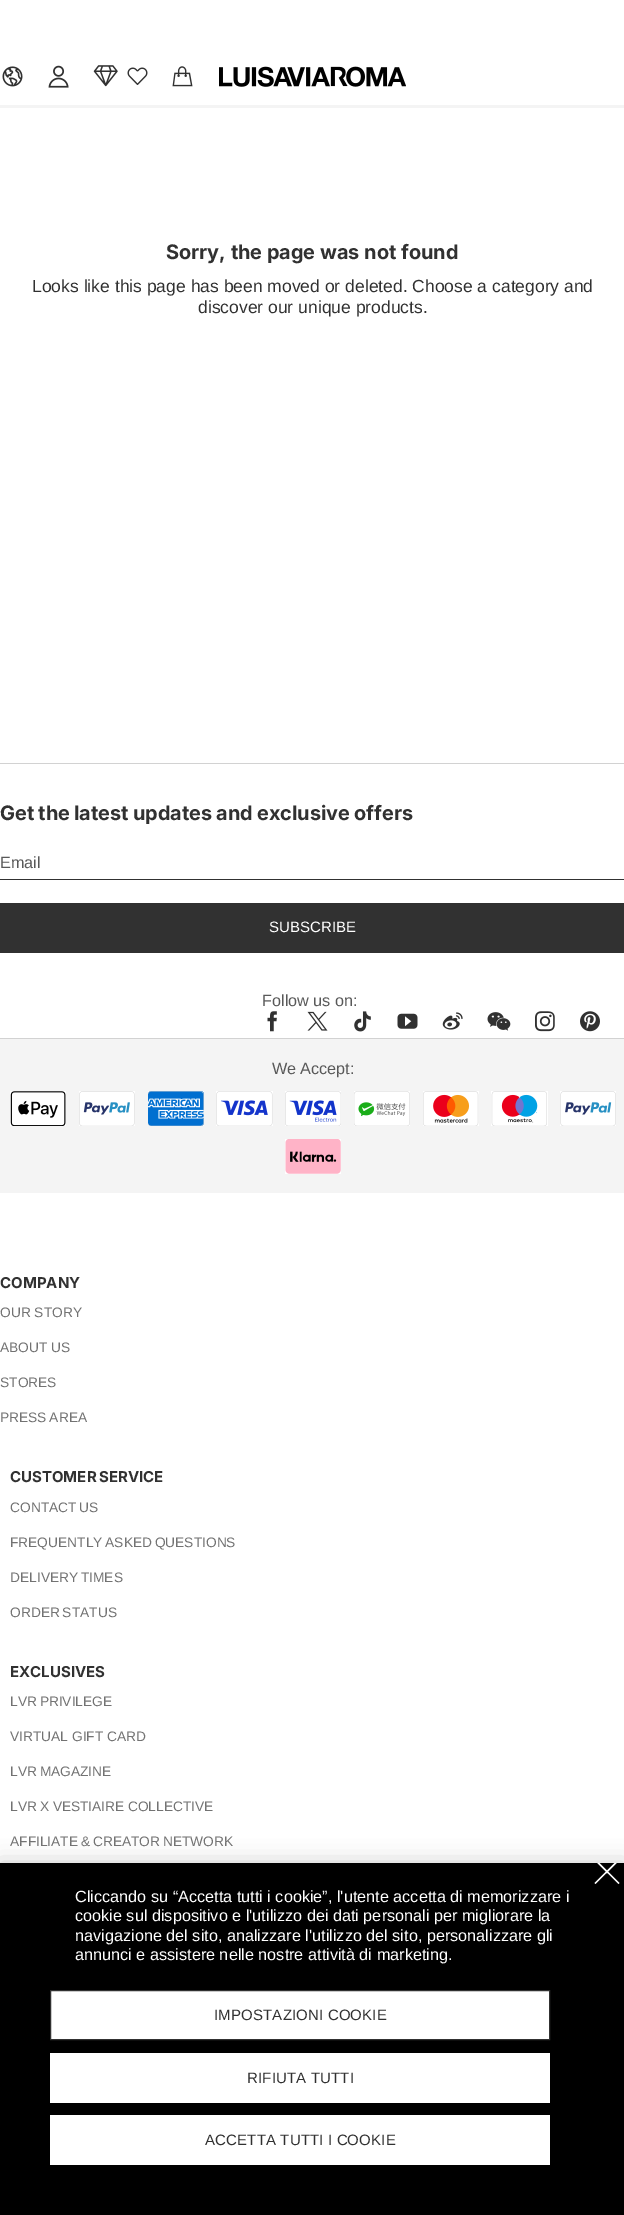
%!PS
<< /PageSize [624 2215] /PageUsesTransparency true >> setpagedevice
/rgb { 3 { 255 div 3 1 roll } repeat setrgbcolor } def
/font { [ exch dup neg 0 0 3 -1 roll 0 0 ] selectfont } def
/text { moveto show } def
/alpha { dup .setfillconstantalpha .setstrokeconstantalpha } def
/roundrect { 5 dict begin { /r /h /w /y /x } { exch def } forall
  x r add y moveto x w add y 2 copy h add r arct x w add y h add x 1 index r arct
  x y h add x y r arct x y 2 copy exch w add exch r arct closepath end } def
/shadow { 12 dict begin { /a /b /q /h /w /y /x } { exch def } forall gsave /was 0 def
  9 -2 -9 { dup b mul 4 div /e exch def 1 sub .425 mul 2.718 exch exp 1 add a .99 .min exch div /now exch def
    1 1 now sub 1 was sub div sub alpha /was now def
    w h .min e 2 mul add 0 gt { x e sub y e sub w e 2 mul add h e 2 mul add
      q e add b .6 mul add w h .min 2 div e add .min 0 .max roundrect fill } if } for grestore end } def
/picture { 5 dict begin { /h /w /y /x /name } { exch def } forall
  gsave x y translate w h scale
  w h 8 [w 0 0 h 0 0] name (r) file false 3 colorimage grestore end } def
0 .pushpdf14devicefilter
0 2215 translate 1 -1 scale
4 setmiterlimit
255 255 255 rgb
0 0 624 2215 rectfill
244 244 244 rgb
0 105 624 3 rectfill
(img_01.rgb) 2 66 21 21 picture
(img_02.rgb) 48 65 21 23 picture
(img_03.rgb) 93 65 25 22 picture
(img_04.rgb) 127 67 21 18 picture
(img_05.rgb) 172 66 21 21 picture
(img_06.rgb) 219 66 187 21 picture
210 210 210 rgb
0 763 624 1 rectfill
49 49 49 rgb
0 879 624 1 rectfill
0 903 624 50 rectfill
(img_07.rgb) 267 1011 10 21 picture
(img_08.rgb) 307 1011 21 20 picture
(img_09.rgb) 354 1011 17 21 picture
(img_10.rgb) 397 1013 21 16 picture
(img_11.rgb) 442 1012 21 18 picture
(img_12.rgb) 487 1012 24 19 picture
(img_13.rgb) 535 1011 20 21 picture
(img_14.rgb) 580 1011 20 21 picture
244 244 244 rgb
0 1039 624 154 rectfill
210 210 210 rgb
0 1038 624 1 rectfill
255 255 255 rgb
10 1091 56 35 rectfill
(img_15.rgb) 10 1091 56 35 picture
79 1091 56 35 rectfill
(img_16.rgb) 79 1091 56 35 picture
148 1091 56 35 rectfill
(img_17.rgb) 148 1091 56 35 picture
216 1091 57 35 rectfill
(img_18.rgb) 216 1091 57 35 picture
285 1091 56 35 rectfill
(img_19.rgb) 285 1091 56 35 picture
354 1091 56 35 rectfill
(img_20.rgb) 354 1091 56 35 picture
423 1091 56 35 rectfill
(img_21.rgb) 423 1091 56 35 picture
491 1091 57 35 rectfill
(img_22.rgb) 491 1091 56 35 picture
560 1091 56 35 rectfill
(img_23.rgb) 560 1091 56 35 picture
285 1139 56 35 rectfill
(img_24.rgb) 285 1139 56 35 picture
0 0 0 rgb
0 1863 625 352 0 11 0.2 shadow
0 1863 624 352 rectfill
gsave
0 1863 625 352 rectclip
255 255 255 rgb
594.5 1860 moveto 1 -1 rlineto 24 24 rlineto -1 1 rlineto closepath fill
618.5 1859 moveto 1 1 rlineto -24 24 rlineto -1 -1 rlineto closepath fill
grestore
255 255 255 rgb
50.5 1990.5 moveto 499 0 rlineto 0 49 rlineto -499 0 rlineto closepath gsave fill grestore
49 49 49 rgb
stroke
255 255 255 rgb
50 2053 500 50 rectfill
50 2115 500 50 rectfill
/Inter-Bold 20 font
49 49 49 rgb
(Sorry, the page was not found) 166 259 text
/LiberationSans-Regular 17.5 font
(Looks like this page has been moved or deleted. Choose a category and) 32 292 text
(discover our unique products.) 198 313 text
/Inter-Bold 20 font
0 820 moveto -0.5 0 32 (Get the latest updates and exclusive offers) widthshow
/LiberationSans-Regular 16.25 font
89 89 89 rgb
(Email) 0 868 text
/LiberationSans-Regular 15 font
255 255 255 rgb
(SUBSCRIBE) 269 932 text
/LiberationSans-Regular 16.25 font
89 89 89 rgb
(Follow us on:) 262 1006 text
272 1074 moveto -1 0 32 (We Accept:) widthshow
/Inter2-Bold 15 font
49 49 49 rgb
(COMPANY) 0 1288 text
/LiberationSans-Regular 13.75 font
114 114 114 rgb
(OUR STORY) 0 1317 text
(ABOUT US) 0 1352 text
(STORES) 0 1387 text
0 1422 moveto -1 0 32 (PRESS AREA) widthshow
/Inter2-Bold 15 font
49 49 49 rgb
10 1482 moveto -1 0 32 (CUSTOMER SERVICE) widthshow
/LiberationSans-Regular 13.75 font
114 114 114 rgb
10 1512 moveto -1 0 32 (CONTACT US) widthshow
10 1547 moveto -1 0 32 (FREQUENTLY ASKED QUESTIONS) widthshow
10 1582 moveto -1 0 32 (DELIVERY TIMES) widthshow
10 1617 moveto -1 0 32 (ORDER STATUS) widthshow
/Inter2-Bold 15 font
49 49 49 rgb
(EXCLUSIVES) 10 1677 text
/LiberationSans-Regular 13.75 font
114 114 114 rgb
10 1706 moveto -1 0 32 (LVR PRIVILEGE) widthshow
(VIRTUAL GIFT CARD) 10 1741 text
10 1776 moveto -1 0 32 (LVR MAGAZINE) widthshow
10 1811 moveto -0.5 0 32 (LVR X VESTIAIRE COLLECTIVE) widthshow
10 1846 moveto -1 0 32 (AFFILIATE & CREATOR NETWORK) widthshow
/LiberationSans-Regular 16.25 font
255 255 255 rgb
(Cliccando su “Accetta tutti i cookie”, l'utente accetta di memorizzare i) 75 1902 text
(cookie sul dispositivo e l'utilizzo dei dati personali per migliorare la) 75 1921 text
(navigazione del sito, analizzare l'utilizzo del sito, personalizzare gli) 75 1941 text
(annunci e assistere nelle nostre attività di marketing.) 75 1960 text
/LiberationSans-Regular 15 font
49 49 49 rgb
214 2020 moveto 0.15 0 (IMPOSTAZIONI COOKIE) ashow
247 2083 moveto 0.15 0 (RIFIUTA TUTTI) ashow
205 2145 moveto 0.15 0 (ACCETTA TUTTI I COOKIE) ashow
.poppdf14devicefilter showpage
